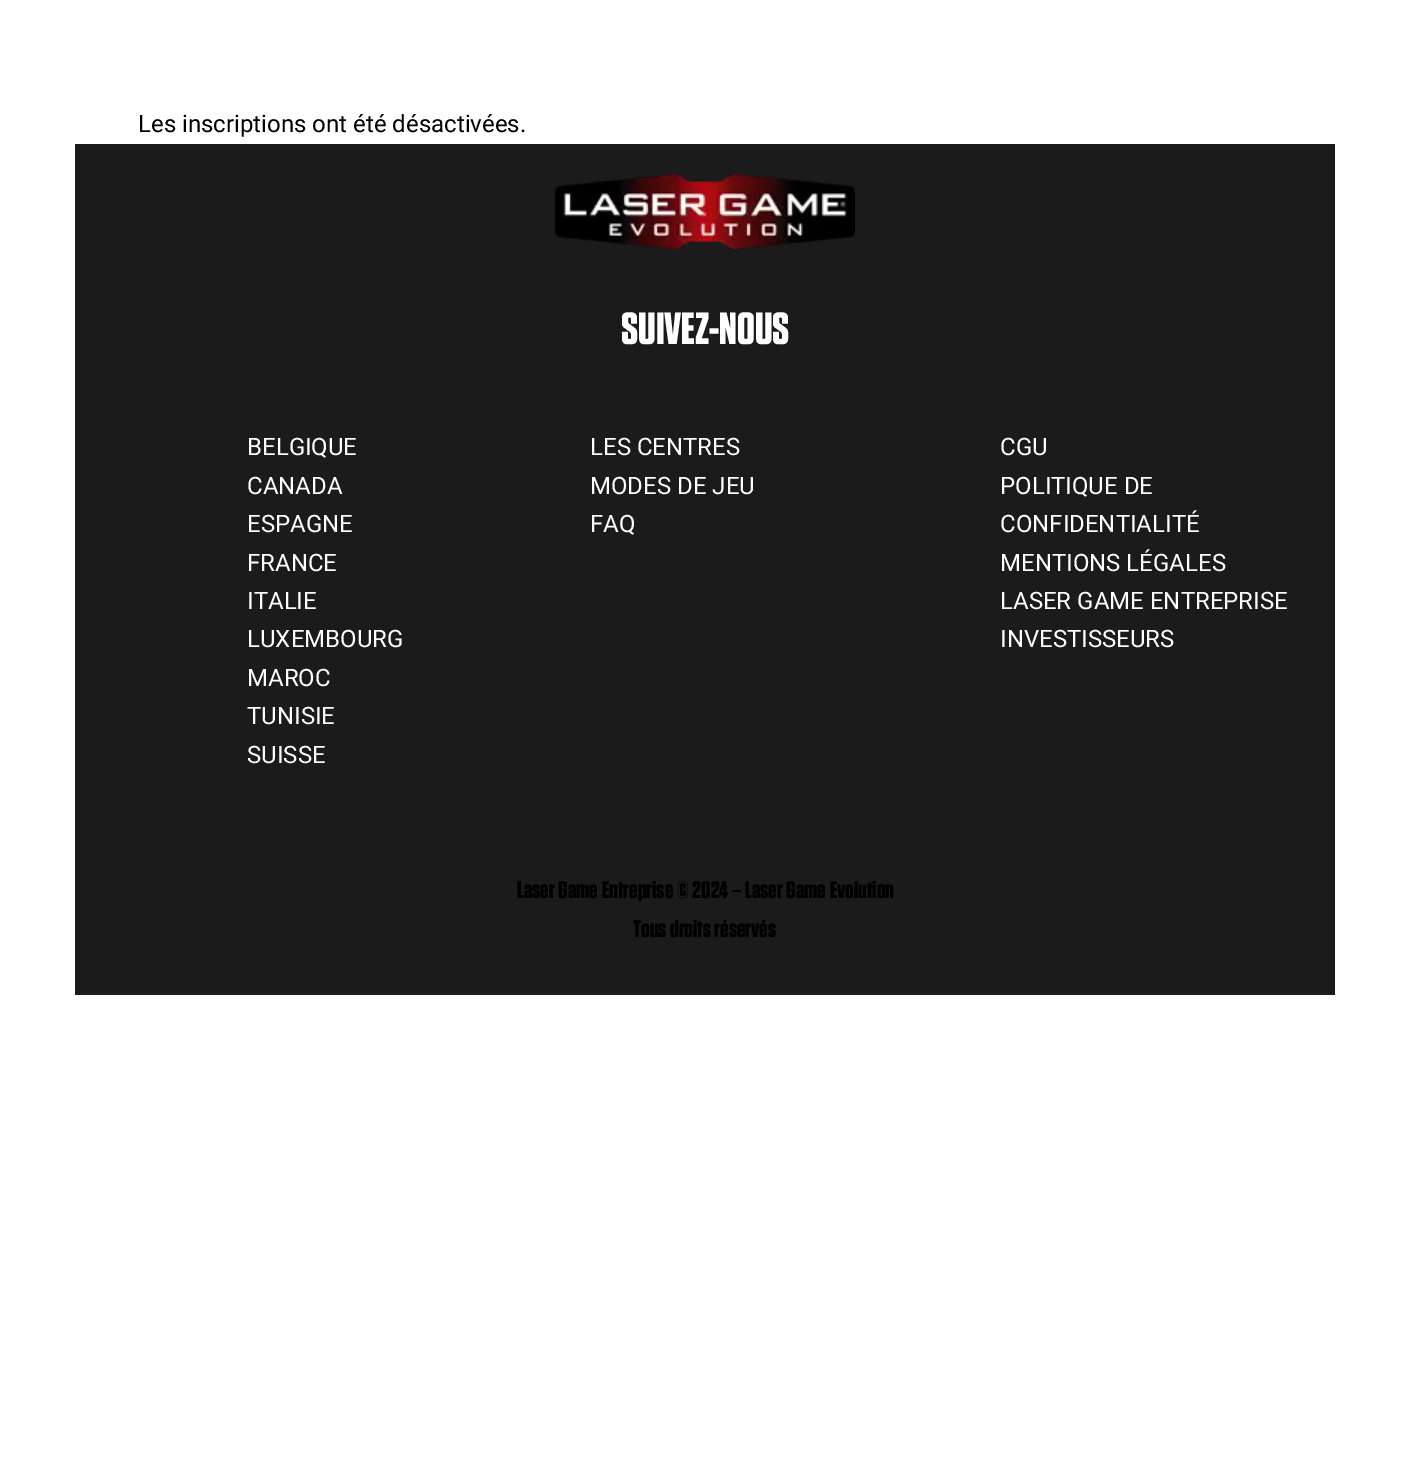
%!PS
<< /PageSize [1410 1471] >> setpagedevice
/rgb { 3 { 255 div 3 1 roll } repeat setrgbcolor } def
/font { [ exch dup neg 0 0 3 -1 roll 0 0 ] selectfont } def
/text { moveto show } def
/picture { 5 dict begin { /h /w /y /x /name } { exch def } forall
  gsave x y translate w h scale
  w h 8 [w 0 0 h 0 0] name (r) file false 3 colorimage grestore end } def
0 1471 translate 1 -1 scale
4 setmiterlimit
255 255 255 rgb
0 0 1410 1471 rectfill
27 27 27 rgb
75 144 1260 851 rectfill
(img_01.rgb) 555 174 300 75 picture
/Roboto-Regular 24 font
0 0 0 rgb
(Les inscriptions ont été désactivées.) 138 132 text
/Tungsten-Bold 45 font
255 255 255 rgb
(SUIVEZ-NOUS) 621 344 text
/Roboto-Regular 24 font
(BELGIQUE) 247 455 text
(CANADA) 247 494 text
(ESPAGNE) 247 532 text
(FRANCE) 247 571 text
(ITALIE) 247 609 text
(LUXEMBOURG) 247 647 text
(MAROC) 247 686 text
(TUNISIE) 247 724 text
(SUISSE) 247 763 text
(LES CENTRES) 590 455 text
(MODES DE JEU) 590 494 text
(FAQ) 590 532 text
(CGU) 1000 455 text
(POLITIQUE DE) 1000 494 text
(CONFIDENTIALITÉ) 1000 532 text
(MENTIONS LÉGALES) 1000 571 text
(LASER GAME ENTREPRISE) 1000 609 text
(INVESTISSEURS) 1000 647 text
/Tungsten-Bold 24 font
0 0 0 rgb
517 898 moveto 0.5 0 32 (Laser Game Entreprise © 2024 – Laser Game Evolution) widthshow
(Tous droits réservés) 633 937 text
showpage
